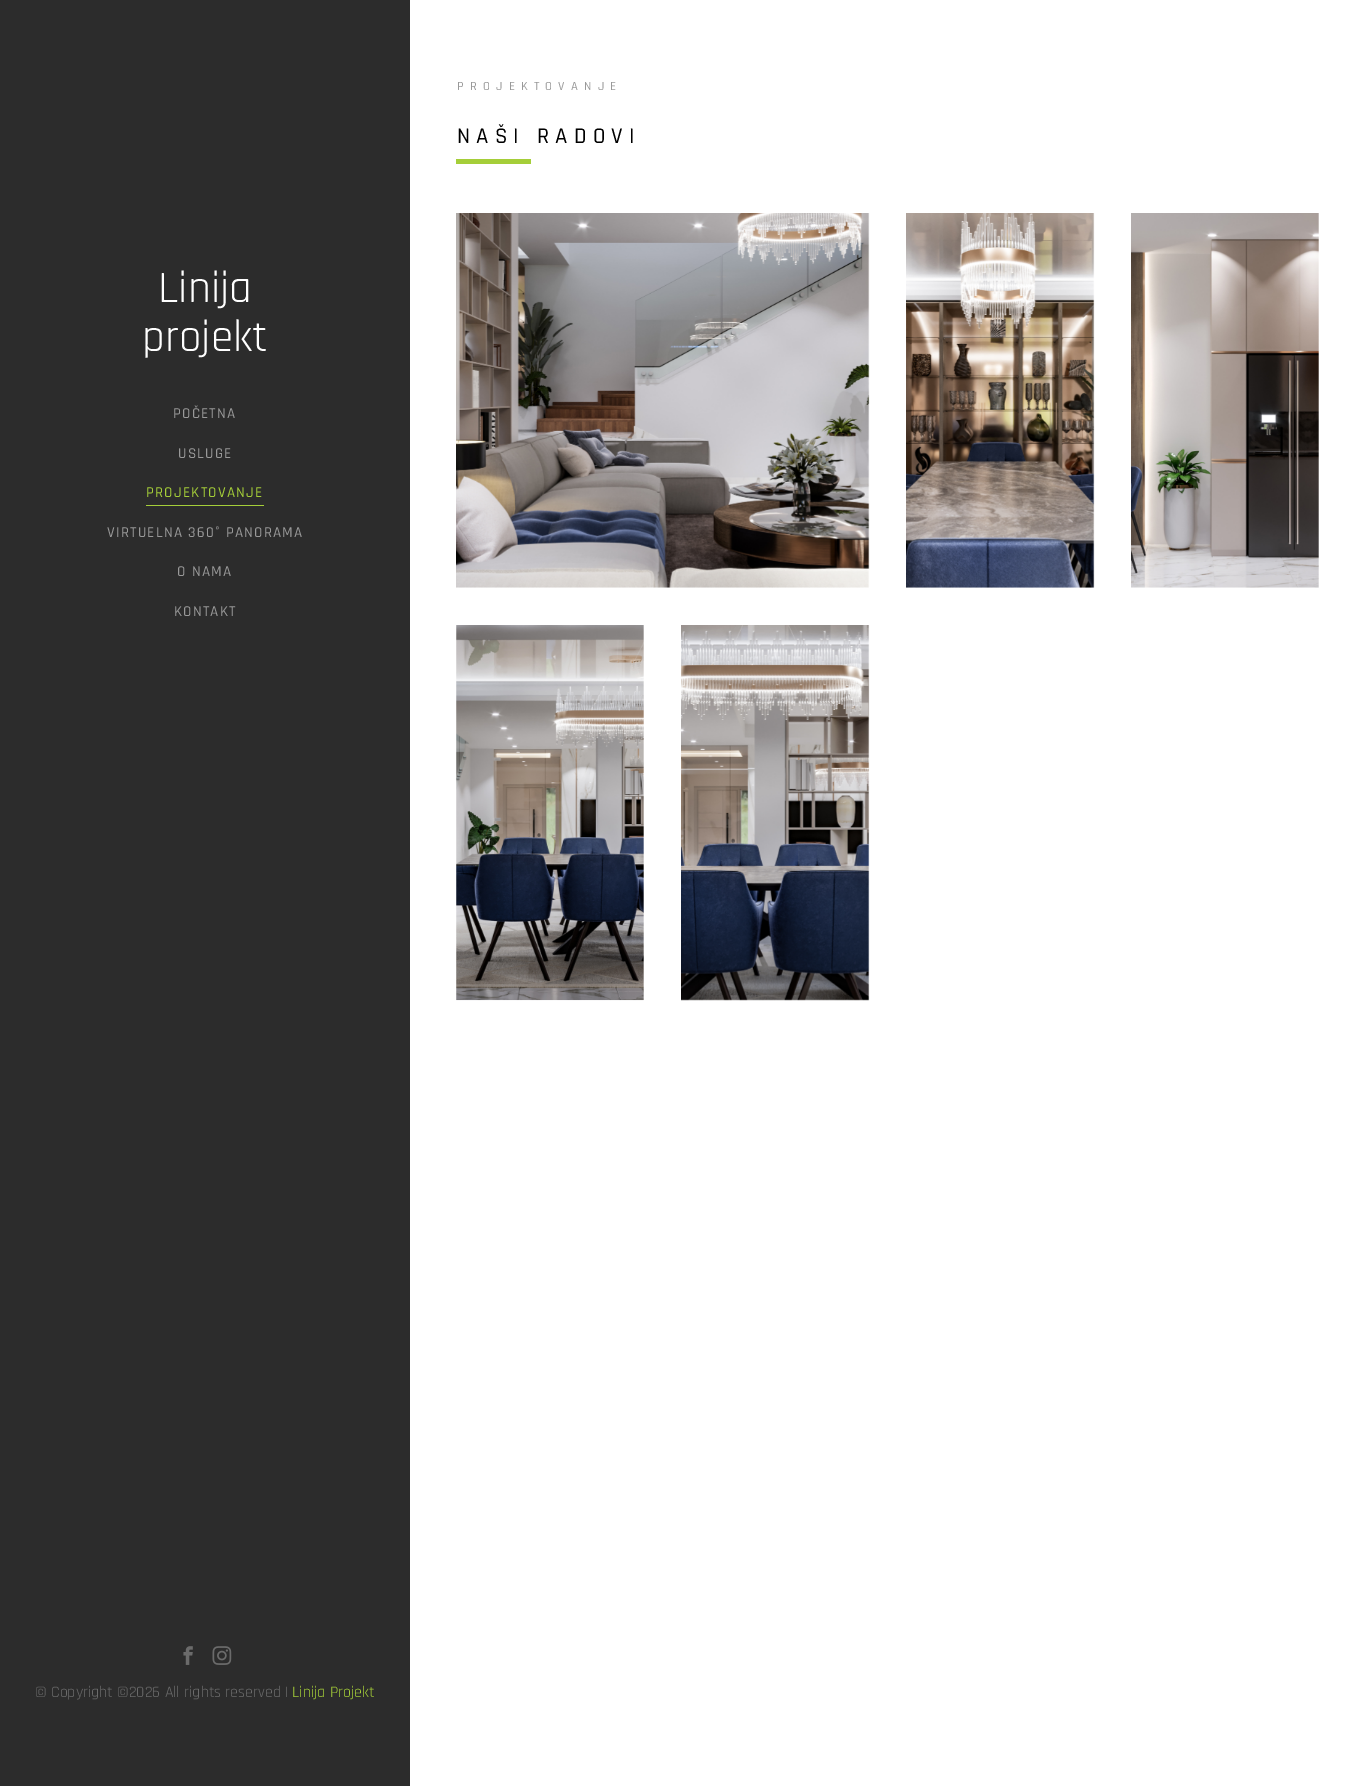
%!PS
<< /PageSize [1366 1786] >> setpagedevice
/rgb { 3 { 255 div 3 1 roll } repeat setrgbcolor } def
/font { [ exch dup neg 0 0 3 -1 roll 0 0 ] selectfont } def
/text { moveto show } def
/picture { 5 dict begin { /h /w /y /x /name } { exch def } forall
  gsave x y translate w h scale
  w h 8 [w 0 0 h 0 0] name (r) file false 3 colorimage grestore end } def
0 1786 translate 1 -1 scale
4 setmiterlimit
255 255 255 rgb
0 0 1366 1786 rectfill
165 206 57 rgb
456 159 75 5 rectfill
(img_01.rgb) 456 213 414 375 picture
(img_02.rgb) 906 213 189 375 picture
(img_03.rgb) 1131 213 188 375 picture
(img_04.rgb) 456 625 188 376 picture
(img_05.rgb) 681 625 189 376 picture
44 44 44 rgb
0 0 410 1786 rectfill
165 206 57 rgb
146 505 118 1 rectfill
(img_06.rgb) 183 1646 10 19 picture
(img_07.rgb) 212 1646 20 19 picture
/Rajdhani-Medium 12.5 font
153 153 153 rgb
457 90 moveto 6.25 0 (PROJEKTOVANJE) ashow
/Rajdhani-Medium 22.5 font
0 0 0 rgb
457 143 moveto 6.25 0 (NAŠI RADOVI) ashow
/Rajdhani-Regular 45 font
255 255 255 rgb
(Linija) 158 302 text
(projekt) 142 351 text
/Rajdhani-Medium 15 font
153 153 153 rgb
173 418 moveto 1.25 0 (POČETNA) ashow
178 458 moveto 1.25 0 (USLUGE) ashow
165 206 57 rgb
146 497 moveto 1.25 0 (PROJEKTOVANJE) ashow
153 153 153 rgb
107 537 moveto 1.25 0 (VIRTUELNA 360° PANORAMA) ashow
177 576 moveto 1.25 0 (O NAMA) ashow
174 616 moveto 1.25 0 (KONTAKT) ashow
/Rajdhani-Regular 16 font
107 107 107 rgb
(© Copyright ©2026 All rights reserved |) 35 1697 text
165 206 57 rgb
(Linija Projekt) 292 1697 text
showpage
